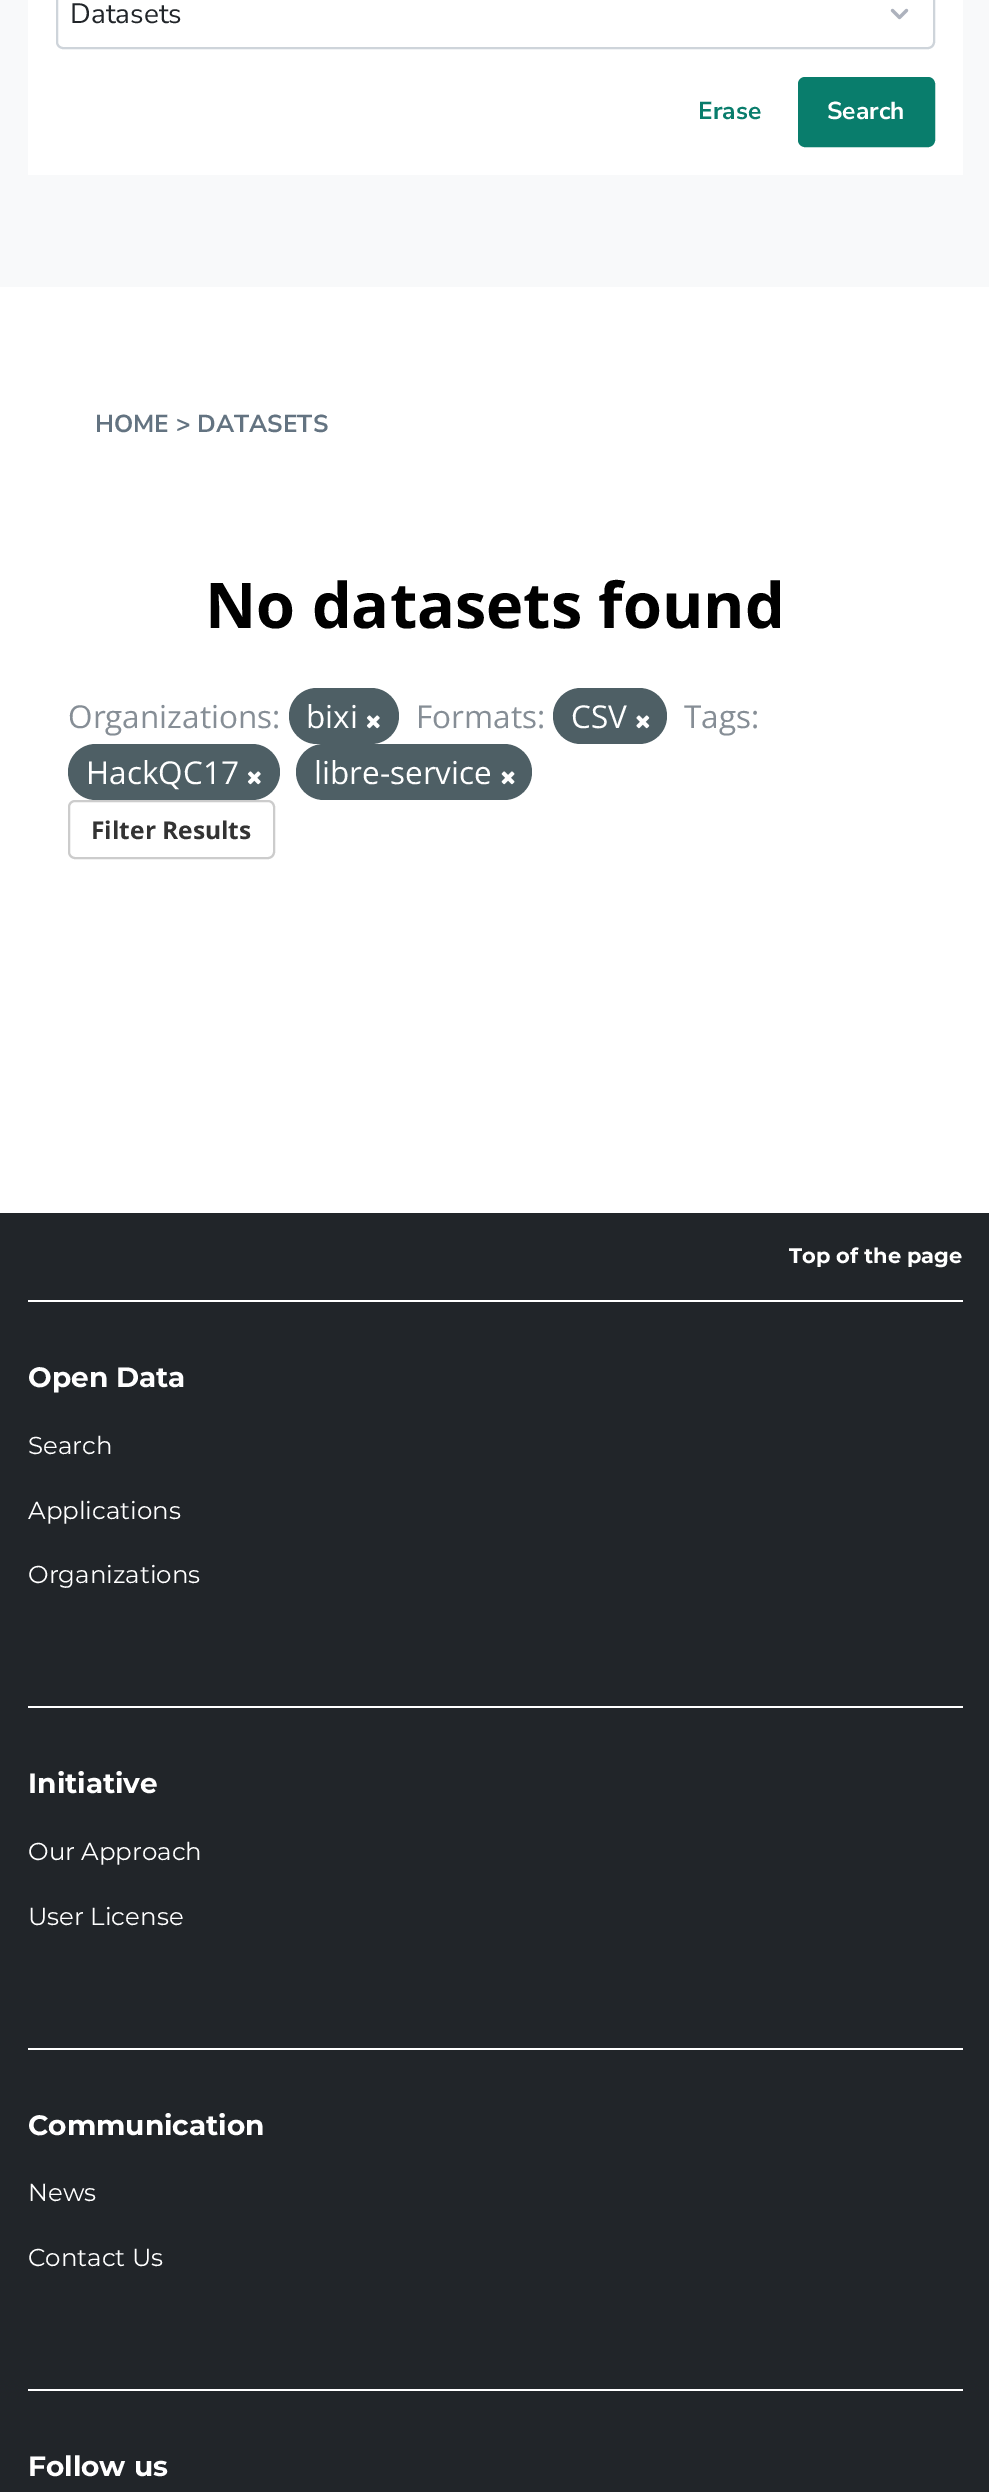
%!PS
<< /PageSize [989 2492] >> setpagedevice
/rgb { 3 { 255 div 3 1 roll } repeat setrgbcolor } def
/font { [ exch dup neg 0 0 3 -1 roll 0 0 ] selectfont } def
/text { moveto show } def
/roundrect { 5 dict begin { /r /h /w /y /x } { exch def } forall
  x r add y moveto x w add y 2 copy h add r arct x w add y h add x 1 index r arct
  x y h add x y r arct x y 2 copy exch w add exch r arct closepath end } def
/picture { 5 dict begin { /h /w /y /x /name } { exch def } forall
  gsave x y translate w h scale
  w h 8 [w 0 0 h 0 0] name (r) file false 3 colorimage grestore end } def
0 2492 translate 1 -1 scale
4 setmiterlimit
255 255 255 rgb
0 0 989 2492 rectfill
248 249 250 rgb
0 0 989 287 rectfill
255 255 255 rgb
28 0 935 175 rectfill
(img_01.rgb) 890 8 19 12 picture
206 212 218 rgb
2 setlinewidth
57 -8 877 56 6 roundrect stroke
9 125 108 rgb
799 78 135 68 6 roundrect gsave fill grestore
stroke
78 95 101 rgb
289 688 110 56 28 roundrect fill
(img_02.rgb) 366 715 14 14 picture
553 688 114 56 28 roundrect fill
(img_03.rgb) 636 715 14 14 picture
68 744 212 56 28 roundrect fill
(img_02.rgb) 247 771 14 14 picture
296 744 236 56 28 roundrect fill
(img_04.rgb) 501 771 14 14 picture
204 204 204 rgb
69 801 205 57 6 roundrect stroke
33 37 41 rgb
0 1213 989 1279 rectfill
255 255 255 rgb
28 1300 935 2 rectfill
28 1706 935 2 rectfill
28 2048 935 2 rectfill
28 2389 935 2 rectfill
/NunitoSans-Regular 28 font
33 37 41 rgb
(Datasets) 70 23 text
/NunitoSans-Bold 24.5 font
9 125 108 rgb
(Erase) 698 119 text
255 255 255 rgb
(Search) 827 119 text
99 115 129 rgb
(HOME > DATASETS) 95 432 text
/OpenSans-Bold 63 font
0 0 0 rgb
(No datasets found) 205 628 text
/OpenSans-Regular 31.5 font
134 142 150 rgb
(Organizations:) 68 728 text
255 255 255 rgb
(bixi) 306 728 text
134 142 150 rgb
(Formats:) 416 728 text
255 255 255 rgb
(CSV) 571 728 text
134 142 150 rgb
(Tags:) 684 728 text
255 255 255 rgb
(HackQC17) 86 784 text
(libre-service) 314 784 text
/OpenSans-Bold 24.5 font
51 51 51 rgb
(Filter Results) 91 839 text
/Montserrat-Bold 21 font
255 255 255 rgb
(Top of the page) 789 1263 text
/Montserrat-Bold 28 font
(Open Data) 28 1387 text
/Montserrat-Regular 24.5 font
(Search) 28 1454 text
(Applications) 28 1519 text
(Organizations) 28 1583 text
/Montserrat-Bold 28 font
(Initiative) 28 1793 text
/Montserrat-Regular 24.5 font
(Our Approach) 28 1860 text
(User License) 28 1925 text
/Montserrat-Bold 28 font
(Communication) 28 2135 text
/Montserrat-Regular 24.5 font
(News) 28 2201 text
(Contact Us) 28 2266 text
/Montserrat-Bold 28 font
(Follow us) 28 2476 text
showpage
